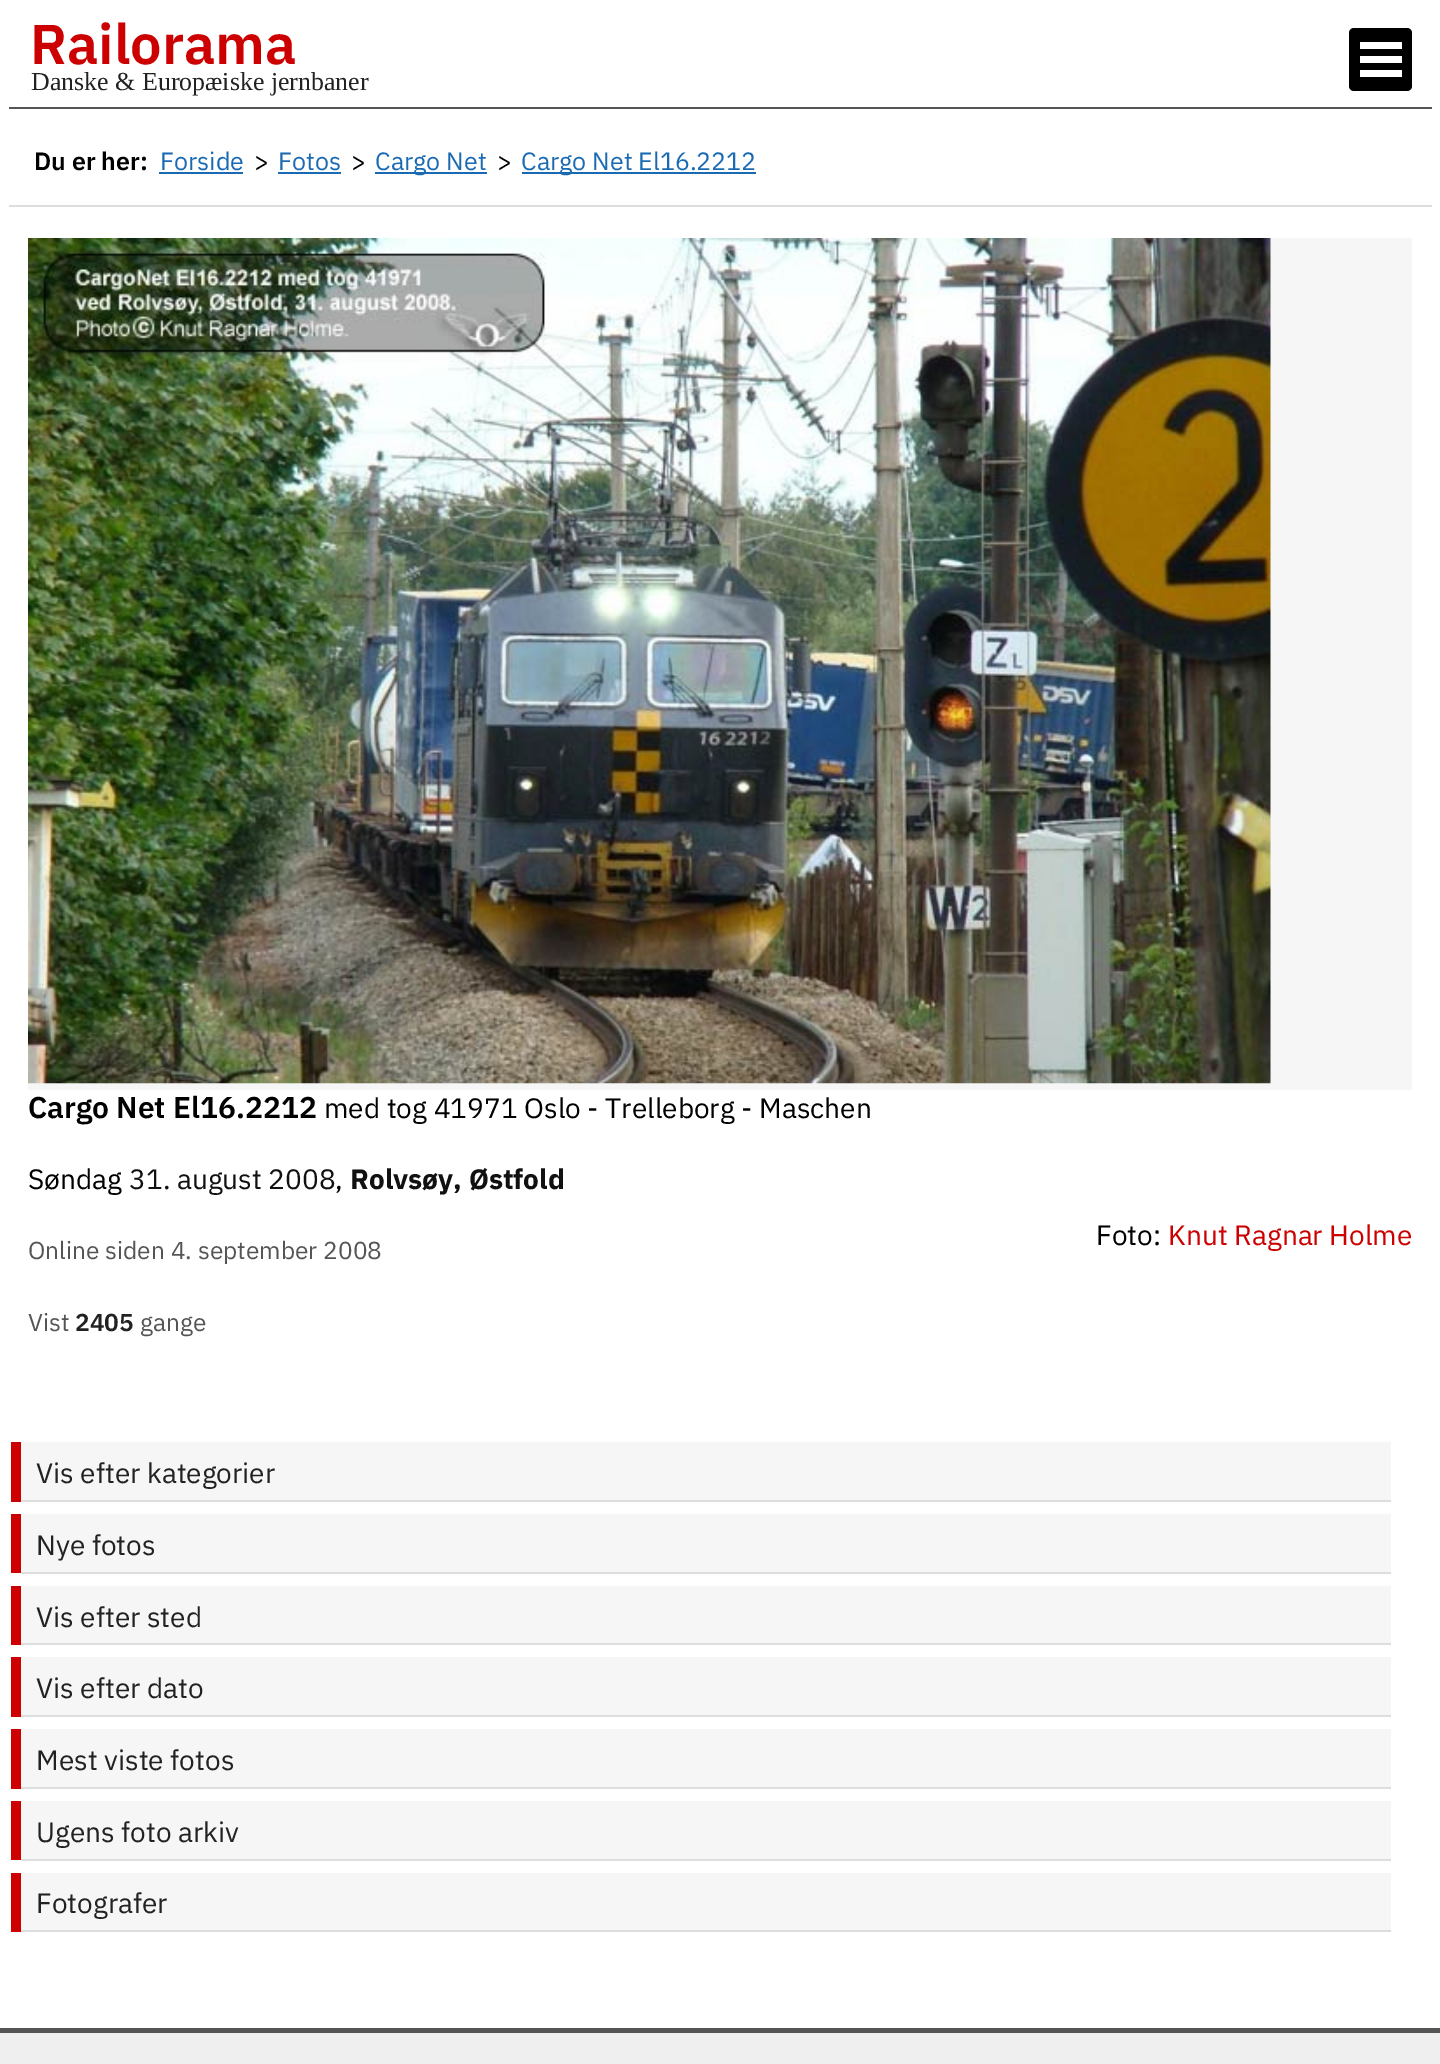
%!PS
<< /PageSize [1440 2064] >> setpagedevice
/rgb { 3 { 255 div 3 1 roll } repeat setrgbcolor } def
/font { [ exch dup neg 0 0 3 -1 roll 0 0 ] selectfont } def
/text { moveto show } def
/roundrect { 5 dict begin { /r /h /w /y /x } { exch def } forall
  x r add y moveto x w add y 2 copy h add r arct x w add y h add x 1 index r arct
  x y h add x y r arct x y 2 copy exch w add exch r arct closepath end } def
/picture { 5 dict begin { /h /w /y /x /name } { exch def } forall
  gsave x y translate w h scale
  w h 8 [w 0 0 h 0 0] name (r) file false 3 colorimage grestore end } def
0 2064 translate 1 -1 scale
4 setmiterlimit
255 255 255 rgb
0 0 1440 2064 rectfill
85 85 85 rgb
9 107 1423 2 rectfill
0 0 0 rgb
1349 28 63 63 5 roundrect fill
255 255 255 rgb
1360 56 42 7 rectfill
1360 42 42 7 rectfill
1360 70 42 7 rectfill
221 221 221 rgb
9 205 1423 2 rectfill
26 106 179 rgb
159 172 84 2 rectfill
278 172 63 2 rectfill
375 172 112 2 rectfill
522 172 234 2 rectfill
246 246 246 rgb
28 238 1384 852 rectfill
(img_01.rgb) 28 238 1243 846 picture
204 0 0 rgb
11 1442 10 60 rectfill
246 246 246 rgb
21 1442 1370 58 rectfill
221 221 221 rgb
21 1500 1370 2 rectfill
204 0 0 rgb
11 1514 10 59 rectfill
246 246 246 rgb
21 1514 1370 58 rectfill
221 221 221 rgb
21 1572 1370 2 rectfill
204 0 0 rgb
11 1586 10 59 rectfill
246 246 246 rgb
21 1586 1370 57 rectfill
221 221 221 rgb
21 1643 1370 2 rectfill
204 0 0 rgb
11 1657 10 60 rectfill
246 246 246 rgb
21 1657 1370 58 rectfill
221 221 221 rgb
21 1715 1370 2 rectfill
204 0 0 rgb
11 1729 10 60 rectfill
246 246 246 rgb
21 1729 1370 58 rectfill
221 221 221 rgb
21 1787 1370 2 rectfill
204 0 0 rgb
11 1801 10 59 rectfill
246 246 246 rgb
21 1801 1370 58 rectfill
221 221 221 rgb
21 1859 1370 2 rectfill
204 0 0 rgb
11 1873 10 59 rectfill
246 246 246 rgb
21 1873 1370 57 rectfill
221 221 221 rgb
21 1930 1370 2 rectfill
239 239 239 rgb
0 2033 1440 31 rectfill
85 85 85 rgb
0 2028 1440 5 rectfill
/IBMPlexSans-SemiBold 56 font
204 0 0 rgb
(Railorama) 30 64 text
/LiberationSerif-Regular 25.9 font
34 34 34 rgb
(Danske & Europæiske jernbaner) 31 90 text
/IBMPlexSans-SemiBold 25 font
0 0 0 rgb
(Du er her:) 34 170 text
/IBMPlexSans-Regular 25 font
26 106 179 rgb
(Forside) 160 170 text
0 0 0 rgb
(>) 254 170 text
26 106 179 rgb
(Fotos) 278 170 text
0 0 0 rgb
(>) 351 170 text
26 106 179 rgb
(Cargo Net) 375 170 text
0 0 0 rgb
(>) 497 170 text
26 106 179 rgb
(Cargo Net El16.2212) 521 170 text
/IBMPlexSans-SemiBold 30 font
0 0 0 rgb
(Cargo Net El16.2212) 28 1118 text
/IBMPlexSans-Regular 28 font
(med tog 41971 Oslo - Trelleborg - Maschen) 324 1118 text
(Søndag) 28 1189 text
17 17 17 rgb
(31. august 2008) 129 1189 text
0 0 0 rgb
(,) 335 1189 text
/IBMPlexSans-Bold 28 font
17 17 17 rgb
(Rolvsøy, Østfold) 350 1189 text
/IBMPlexSans-Regular 24.5 font
85 85 85 rgb
(Online siden 4. september 2008) 28 1259 text
/IBMPlexSans-Regular 28 font
0 0 0 rgb
(Foto:) 1096 1245 text
204 0 0 rgb
(Knut Ragnar Holme) 1168 1245 text
/IBMPlexSans-Regular 24.5 font
85 85 85 rgb
(Vist) 28 1331 text
/IBMPlexSans-SemiBold 24.5 font
34 34 34 rgb
(2405) 75 1331 text
/IBMPlexSans-Regular 24.5 font
85 85 85 rgb
(gange) 140 1331 text
/IBMPlexSans-Regular 28 font
34 34 34 rgb
(Vis efter kategorier) 36 1483 text
(Nye fotos) 36 1555 text
(Vis efter sted) 36 1627 text
(Vis efter dato) 36 1698 text
(Mest viste fotos) 36 1770 text
(Ugens foto arkiv) 36 1842 text
(Fotografer) 36 1913 text
showpage
